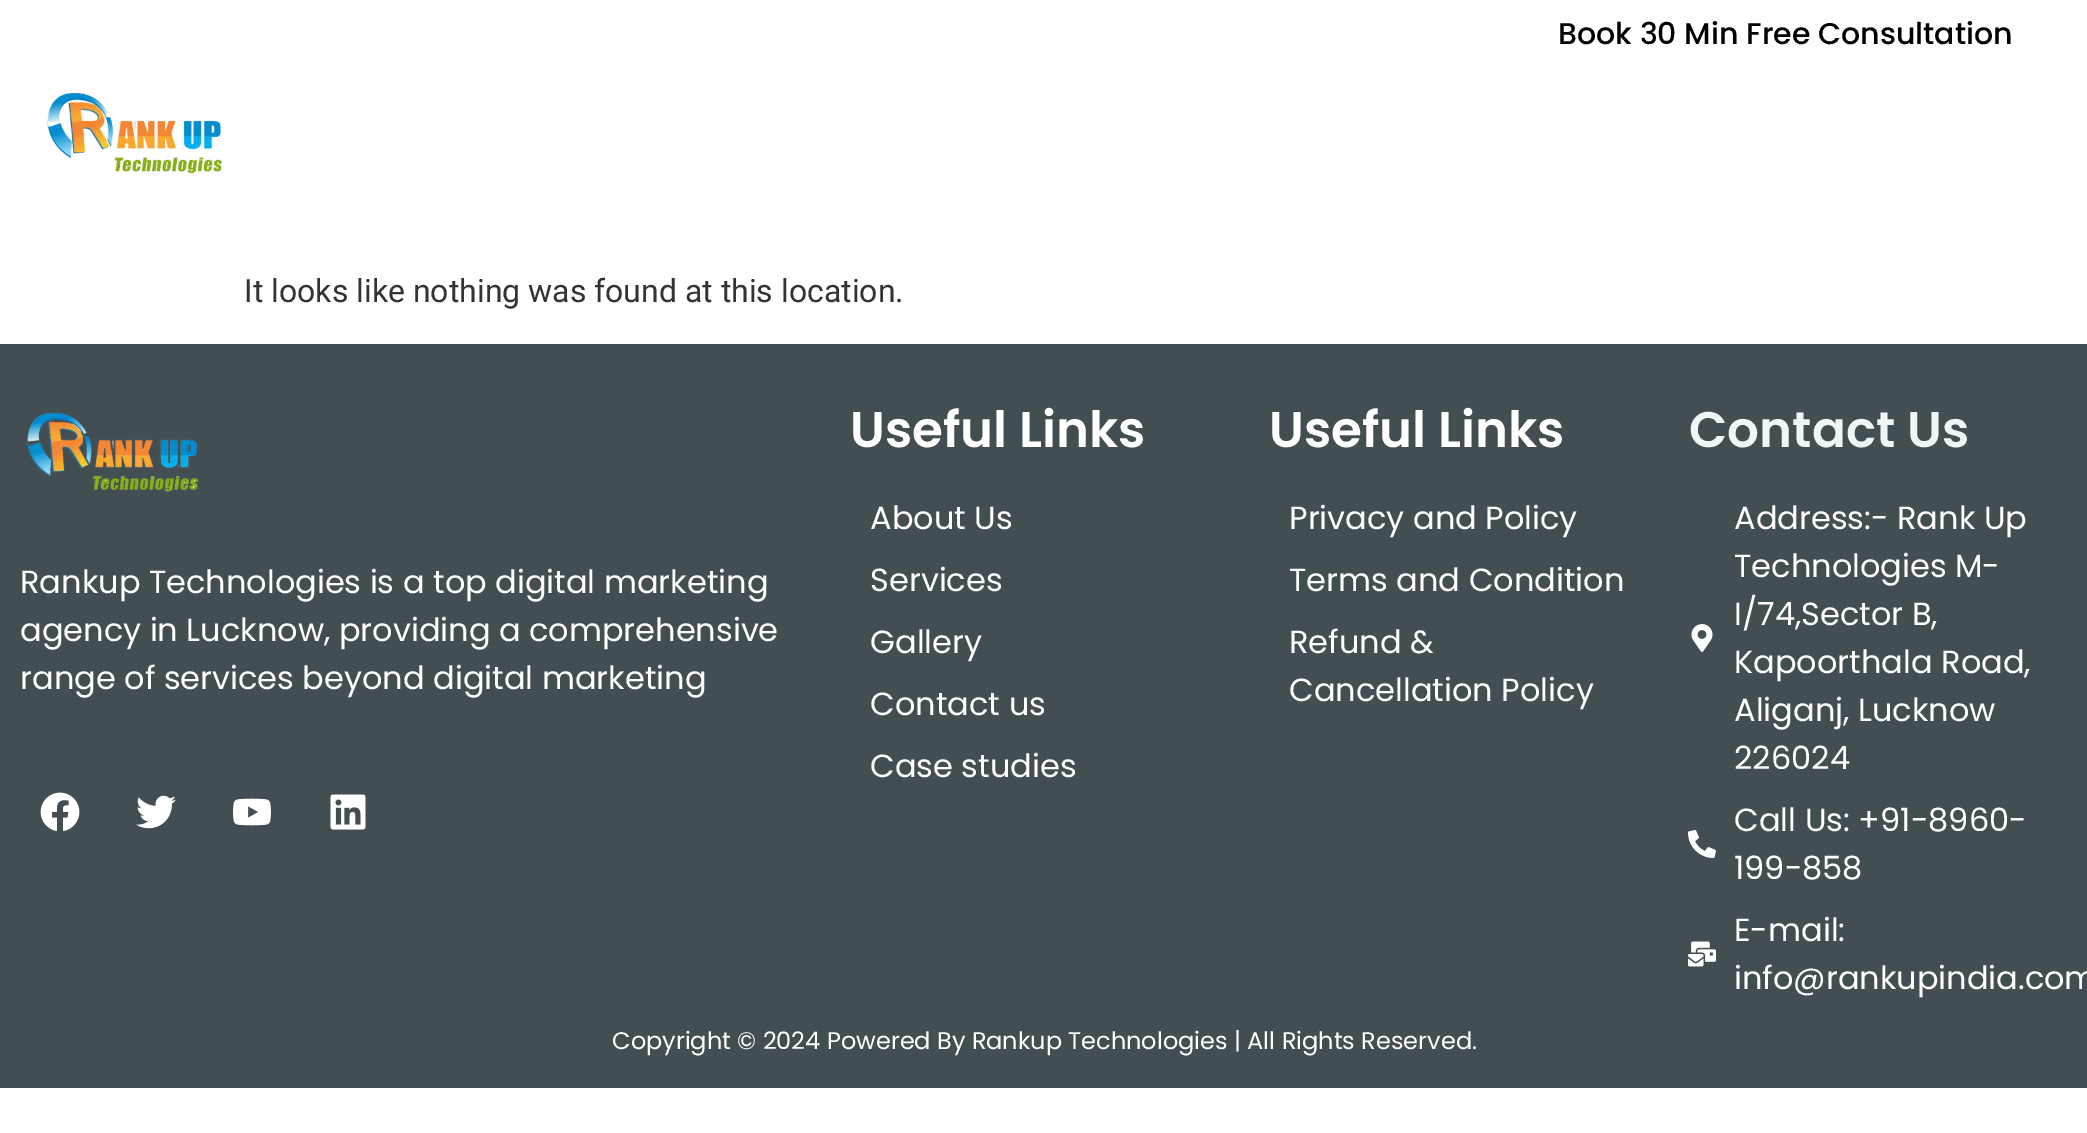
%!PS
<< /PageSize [2087 1133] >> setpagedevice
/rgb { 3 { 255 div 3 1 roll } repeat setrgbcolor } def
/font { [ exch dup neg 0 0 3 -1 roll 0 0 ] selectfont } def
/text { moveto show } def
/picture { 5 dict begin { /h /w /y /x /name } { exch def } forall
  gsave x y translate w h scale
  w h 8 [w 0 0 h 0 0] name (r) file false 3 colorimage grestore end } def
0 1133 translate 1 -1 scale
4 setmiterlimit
255 255 255 rgb
0 0 2087 1133 rectfill
(img_01.rgb) 47 93 176 81 picture
67 78 82 rgb
0 344 2087 744 rectfill
(img_02.rgb) 27 412 172 80 picture
(img_03.rgb) 40 792 40 40 picture
(img_04.rgb) 136 795 40 34 picture
(img_05.rgb) 233 798 38 28 picture
(img_06.rgb) 330 794 36 36 picture
(img_07.rgb) 1691 624 22 28 picture
(img_08.rgb) 1688 830 28 28 picture
(img_09.rgb) 1688 941 28 26 picture
/Poppins-Medium 30 font
2 0 0 rgb
(Book 30 Min Free Consultation) 1558 44 text
/Roboto-Regular 32 font
51 51 51 rgb
(It looks like nothing was found at this location.) 244 302 text
/Poppins-Regular 32 font
255 255 255 rgb
(Rankup Technologies is a top digital marketing) 20 593 text
(agency in Lucknow, providing a comprehensive) 20 641 text
(range of services beyond digital marketing) 20 689 text
/Poppins-SemiBold 50 font
(Useful Links) 850 447 text
/Poppins-Regular 32 font
(About Us) 870 529 text
(Services) 870 591 text
(Gallery) 870 653 text
(Contact us) 870 715 text
(Case studies) 870 777 text
/Poppins-SemiBold 50 font
(Useful Links) 1269 447 text
/Poppins-Regular 32 font
(Privacy and Policy) 1289 529 text
(Terms and Condition) 1289 591 text
(Refund &) 1289 653 text
(Cancellation Policy) 1289 701 text
/Poppins-SemiBold 50 font
240 245 246 rgb
(Contact Us) 1689 447 text
/Poppins-Regular 32 font
255 255 255 rgb
(Address:- Rank Up) 1734 529 text
(Technologies M-) 1734 577 text
(I/74,Sector B,) 1734 625 text
(Kapoorthala Road,) 1734 673 text
(Aliganj, Lucknow) 1734 721 text
(226024) 1734 769 text
(Call Us: +91-8960-) 1734 831 text
(199-858) 1734 879 text
(E-mail:) 1734 941 text
(info@rankupindia.com) 1734 989 text
/Poppins-Regular 24 font
(Copyright © 2024 Powered By Rankup Technologies | All Rights Reserved.) 612 1049 text
showpage
